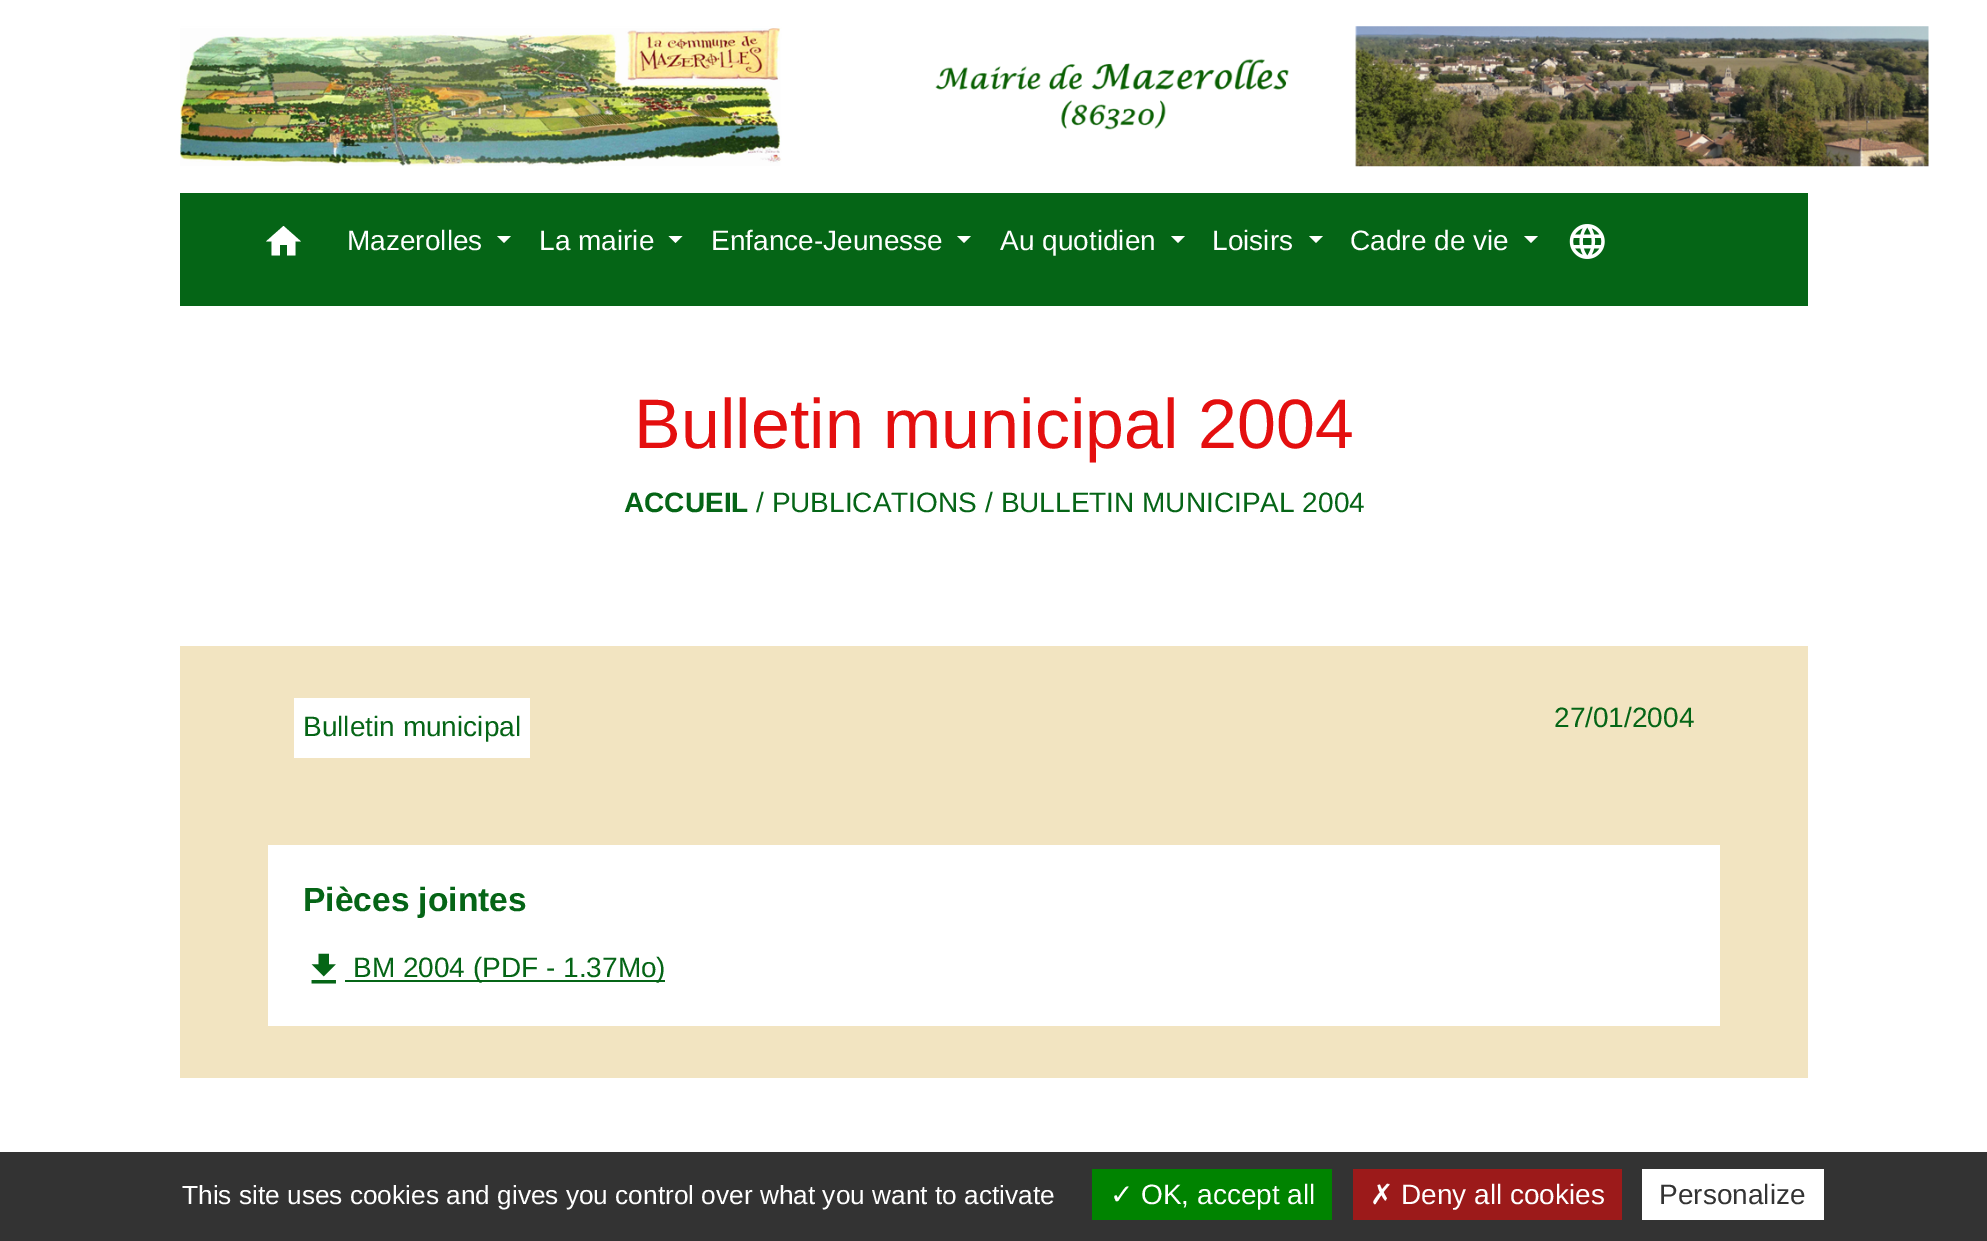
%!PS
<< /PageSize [1987 1241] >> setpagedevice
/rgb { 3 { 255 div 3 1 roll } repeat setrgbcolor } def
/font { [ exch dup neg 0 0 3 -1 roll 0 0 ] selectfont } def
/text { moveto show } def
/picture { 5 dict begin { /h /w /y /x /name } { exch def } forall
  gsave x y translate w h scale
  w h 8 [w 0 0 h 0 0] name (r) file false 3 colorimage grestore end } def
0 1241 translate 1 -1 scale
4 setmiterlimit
255 255 255 rgb
0 0 1987 1241 rectfill
(img_01.rgb) 180 26 1749 141 picture
5 101 22 rgb
180 193 1628 113 rectfill
255 255 255 rgb
280 255.5 moveto -8.5 0 rlineto 0 -14 rlineto -5.5 0 rlineto 17.5 -15.5 rlineto 17.5 15.5 rlineto -5.5 0 rlineto 0 14 rlineto -8.5 0 rlineto 0 -10.5 rlineto -7 0 rlineto closepath fill
497 236 moveto 14 0 rlineto -7 7 rlineto closepath fill
668.5 236 moveto 14 0 rlineto -7 7 rlineto closepath fill
957 236 moveto 14 0 rlineto -7 7 rlineto closepath fill
1171 236 moveto 14 0 rlineto -7 7 rlineto closepath fill
1309 236 moveto 14 0 rlineto -7 7 rlineto closepath fill
1524 236 moveto 14 0 rlineto -7 7 rlineto closepath fill
(img_02.rgb) 1569 224 36 35 picture
242 228 193 rgb
180 646 1628 432 rectfill
255 255 255 rgb
294 698 236 60 rectfill
268 845 1452 181 rectfill
(img_03.rgb) 311 953 25 31 picture
5 101 22 rgb
345 980 320 2 rectfill
51 51 51 rgb
0 1152 1987 89 rectfill
0 131 0 rgb
1092 1169 240 51 rectfill
156 26 26 rgb
1353 1169 269 51 rectfill
255 255 255 rgb
1642 1169 182 51 rectfill
/LiberationSans-Regular 28 font
(Mazerolles) 347 250 text
(La mairie) 539 250 text
(Enfance-Jeunesse) 711 250 text
(Au quotidien) 1000 250 text
(Loisirs) 1212 250 text
(Cadre de vie) 1350 250 text
/LiberationSans-Regular 70 font
228 15 15 rgb
(Bulletin municipal 2004) 634 448 text
/LiberationSans-Bold 28 font
5 101 22 rgb
(ACCUEIL) 624 512 text
/LiberationSans-Regular 28 font
(/ PUBLICATIONS) 756 512 text
(/ BULLETIN MUNICIPAL 2004) 985 512 text
(Bulletin municipal) 303 736 text
(27/01/2004) 1554 727 text
/LiberationSans-Bold 33.5 font
(Pièces jointes) 303 911 text
/LiberationSans-Regular 28 font
(BM 2004 \(PDF - 1.37Mo\)) 353 977 text
/LiberationSans-Regular 26.25 font
255 255 255 rgb
(This site uses cookies and gives you control over what you want to activate) 182 1204 text
/DejaVuSans-Regular 28 font
(✓) 1110 1204 text
/LiberationSans-Regular 28 font
(OK, accept all) 1141 1204 text
/DejaVuSans-Regular 28 font
(✗) 1370 1204 text
/LiberationSans-Regular 28 font
(Deny all cookies) 1401 1204 text
51 51 51 rgb
(Personalize) 1659 1204 text
showpage
